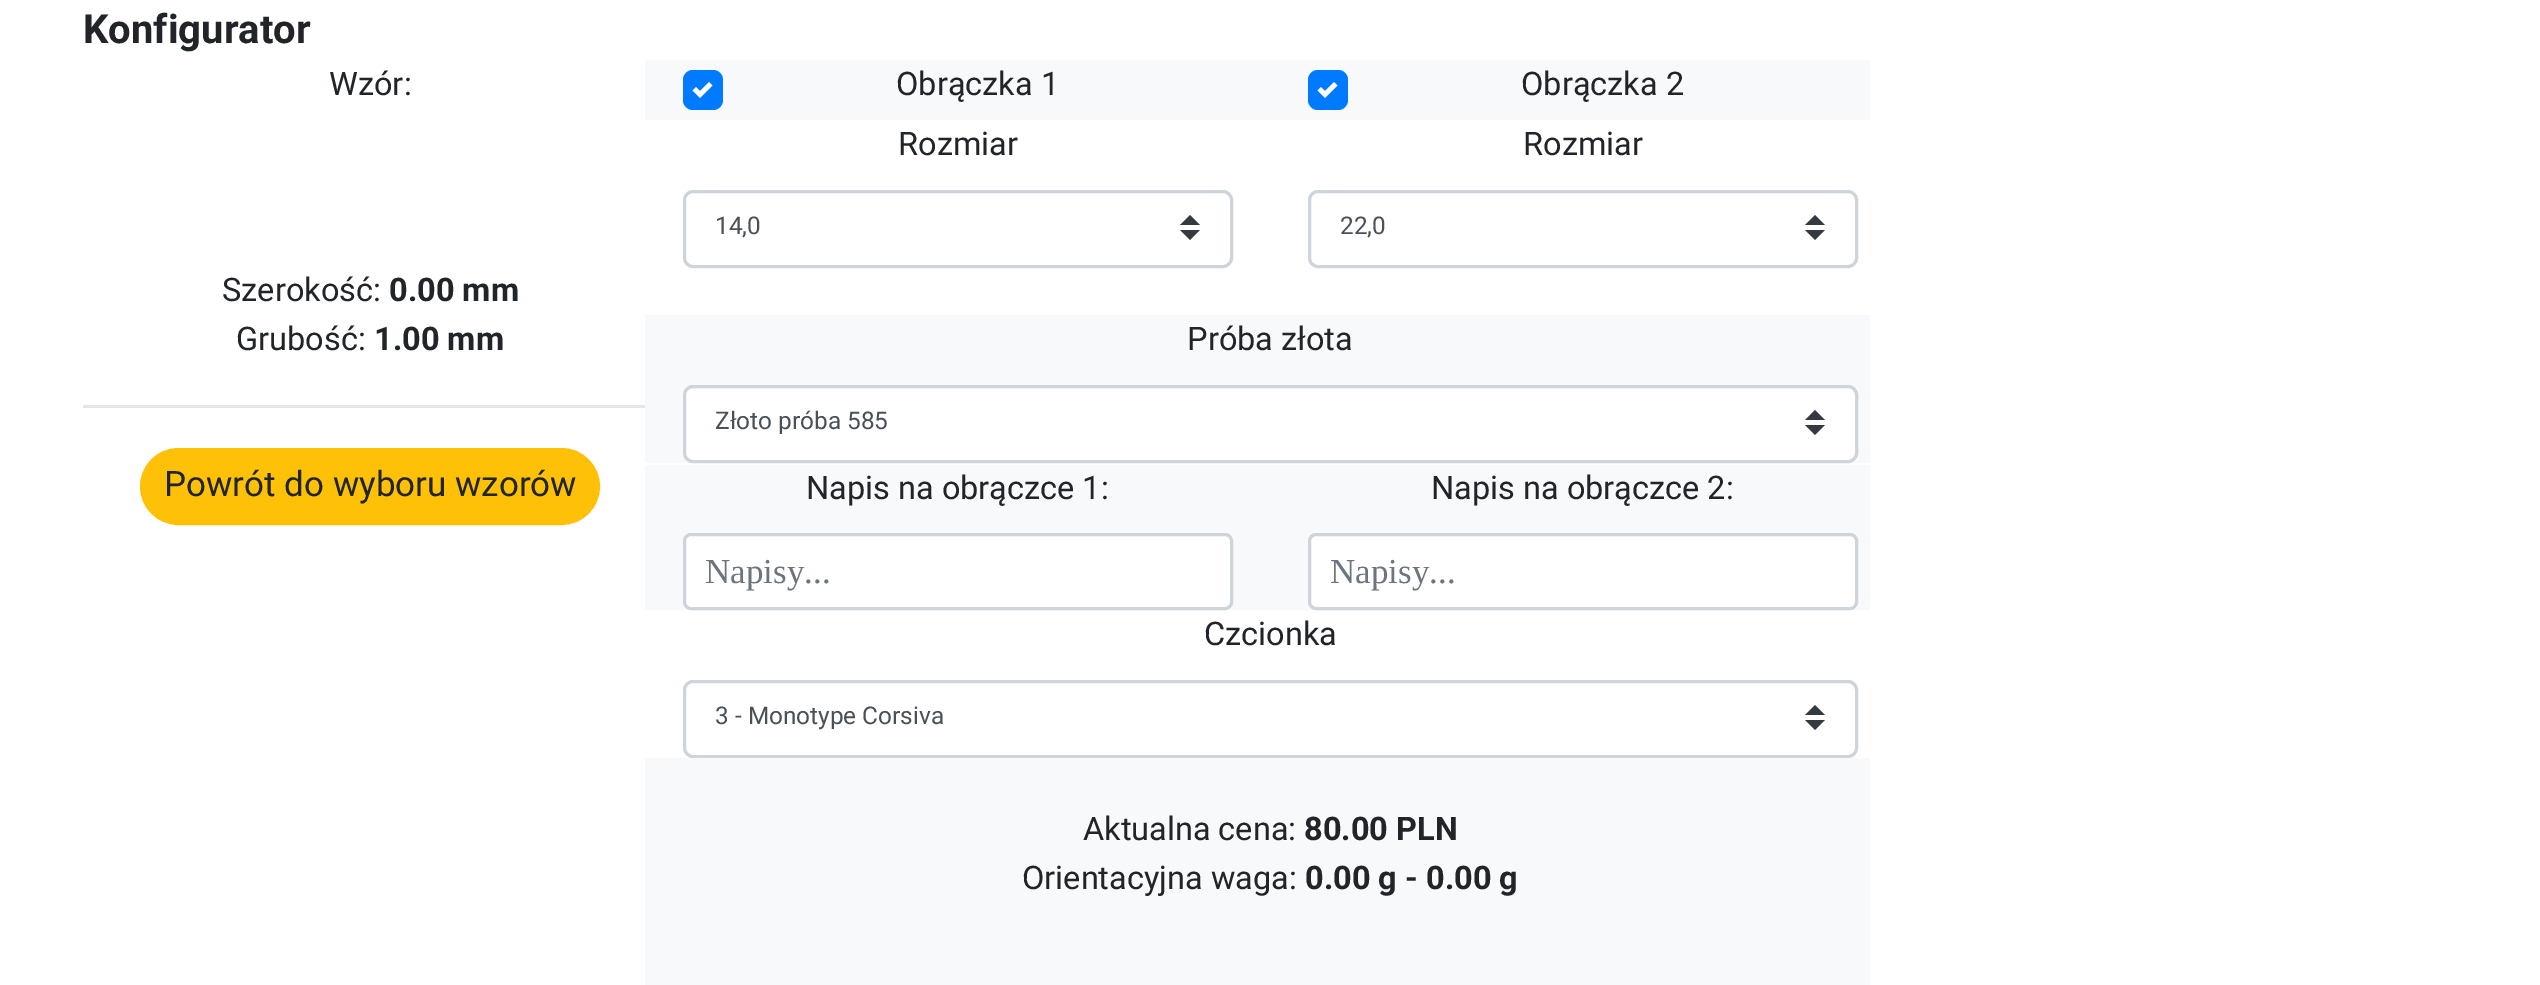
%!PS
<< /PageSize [2540 985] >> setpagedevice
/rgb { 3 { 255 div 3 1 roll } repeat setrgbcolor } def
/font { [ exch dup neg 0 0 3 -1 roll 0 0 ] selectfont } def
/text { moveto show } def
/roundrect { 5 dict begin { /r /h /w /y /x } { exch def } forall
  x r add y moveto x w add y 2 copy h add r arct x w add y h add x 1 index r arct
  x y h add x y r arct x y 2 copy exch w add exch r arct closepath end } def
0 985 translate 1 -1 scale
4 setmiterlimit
255 255 255 rgb
0 0 2540 985 rectfill
230 230 230 rgb
83 405 562 3 rectfill
255 193 7 rgb
141.5 449.5 457 74 37 roundrect gsave fill grestore
3 setlinewidth
stroke
248 249 250 rgb
645 60 1225 60 rectfill
0 123 255 rgb
683 70 40 40 10 roundrect fill
255 255 255 rgb
709 82 moveto -9 9 rlineto -4 -4 rlineto -3.5 3.5 rlineto 7.5 7.5 rlineto 12.5 -12.5 rlineto closepath fill
0 123 255 rgb
1308 70 40 40 10 roundrect fill
255 255 255 rgb
1334 82 moveto -9 9 rlineto -4 -4 rlineto -3.5 3.5 rlineto 7.5 7.5 rlineto 12.5 -12.5 rlineto closepath fill
52 58 64 rgb
1190 215 moveto -10 10 rlineto 20 0 rlineto closepath 1190 240 moveto -10 -10 rlineto 20 0 rlineto closepath fill
206 212 218 rgb
684.5 191.5 547 75 8.5 roundrect stroke
52 58 64 rgb
1815 215 moveto -10 10 rlineto 20 0 rlineto closepath 1815 240 moveto -10 -10 rlineto 20 0 rlineto closepath fill
206 212 218 rgb
1309.5 191.5 547 75 8.5 roundrect stroke
248 249 250 rgb
645 315 1225 148 rectfill
255 255 255 rgb
683 385 1175 78 10 roundrect fill
52 58 64 rgb
1815 410 moveto -10 10 rlineto 20 0 rlineto closepath 1815 435 moveto -10 -10 rlineto 20 0 rlineto closepath fill
206 212 218 rgb
684.5 386.5 1172 75 8.5 roundrect stroke
248 249 250 rgb
645 465 1225 145 rectfill
255 255 255 rgb
684.5 534.5 547 74 6.5 roundrect gsave fill grestore
206 212 218 rgb
stroke
255 255 255 rgb
1309.5 534.5 547 74 6.5 roundrect gsave fill grestore
206 212 218 rgb
stroke
52 58 64 rgb
1815 705 moveto -10 10 rlineto 20 0 rlineto closepath 1815 730 moveto -10 -10 rlineto 20 0 rlineto closepath fill
206 212 218 rgb
684.5 681.5 1172 75 8.5 roundrect stroke
248 249 250 rgb
645 758 1225 227 rectfill
/Roboto-Bold 40 font
33 37 41 rgb
(Konfigurator) 83 43 text
/Roboto-Regular 32.5 font
(Wzór:) 329 95 text
(Szerokość:) 222 301 text
/Roboto-Bold 32.5 font
(0.00 mm) 389 301 text
/Roboto-Regular 32.5 font
(Grubość:) 236 350 text
/Roboto-Bold 32.5 font
(1.00 mm) 374 350 text
/Roboto-Regular 35 font
(Powrót do wyboru wzorów) 164 496 text
/Roboto-Regular 32.5 font
(Obrączka 1) 896 95 text
(Obrączka 2) 1521 95 text
(Rozmiar) 898 155 text
/Roboto-Regular 24.4 font
73 80 87 rgb
(14,0) 715 234 text
/Roboto-Regular 32.5 font
33 37 41 rgb
(Rozmiar) 1523 155 text
/Roboto-Regular 24.4 font
73 80 87 rgb
(22,0) 1340 234 text
/Roboto-Regular 32.5 font
33 37 41 rgb
(Próba złota) 1187 350 text
/Roboto-Regular 24.4 font
73 80 87 rgb
(Złoto próba 585) 715 429 text
/Roboto-Regular 32.5 font
33 37 41 rgb
(Napis na obrączce 1:) 806 499 text
/LiberationSerif-Regular 35 font
108 117 125 rgb
(Napisy...) 705 583 text
/Roboto-Regular 32.5 font
33 37 41 rgb
(Napis na obrączce 2:) 1431 499 text
/LiberationSerif-Regular 35 font
108 117 125 rgb
(Napisy...) 1330 583 text
/Roboto-Regular 32.5 font
33 37 41 rgb
(Czcionka) 1204 645 text
/Roboto-Regular 24.4 font
73 80 87 rgb
(3 - Monotype Corsiva) 715 724 text
/Roboto-Regular 32.5 font
33 37 41 rgb
(Aktualna cena:) 1083 840 text
/Roboto-Bold 32.5 font
(80.00 PLN) 1304 840 text
/Roboto-Regular 32.5 font
(Orientacyjna waga:) 1022 889 text
/Roboto-Bold 32.5 font
(0.00 g - 0.00 g) 1305 889 text
showpage
